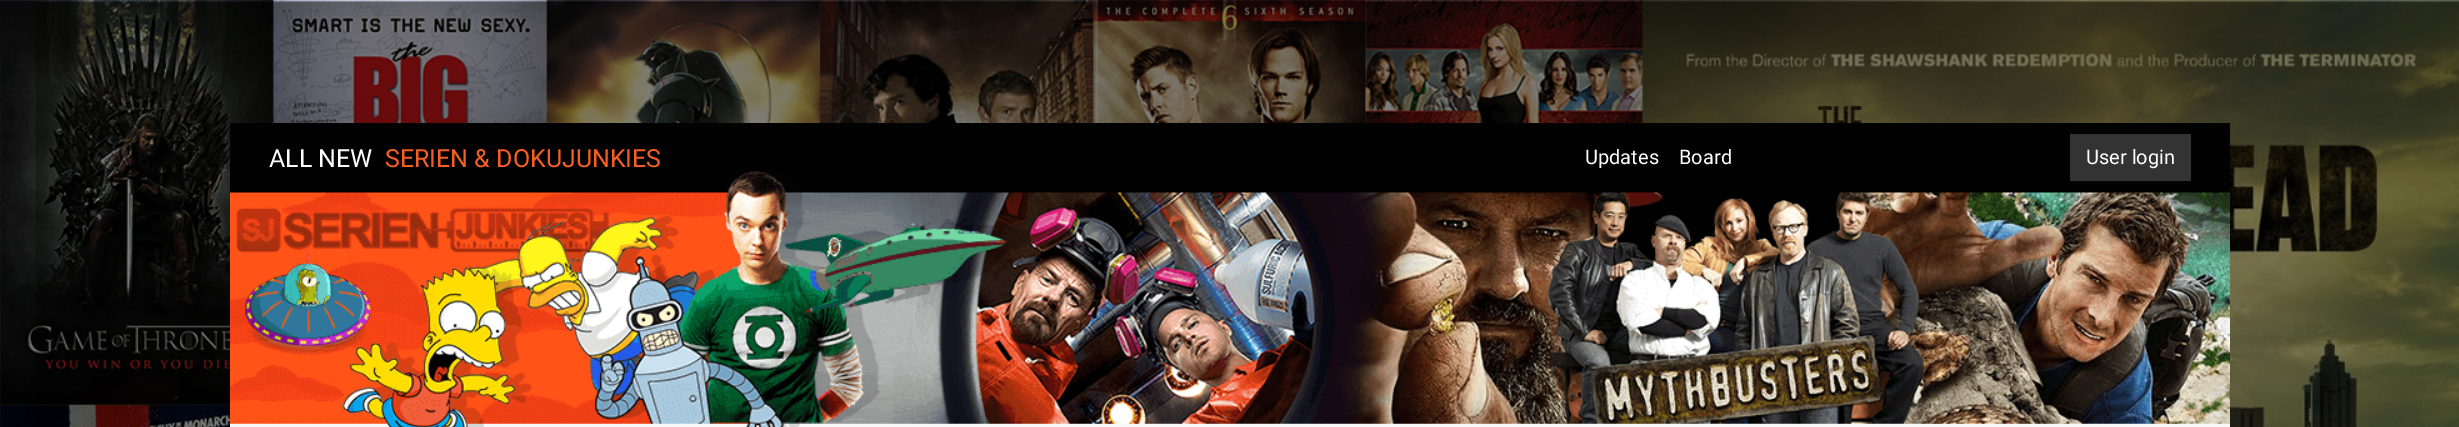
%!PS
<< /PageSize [2459 427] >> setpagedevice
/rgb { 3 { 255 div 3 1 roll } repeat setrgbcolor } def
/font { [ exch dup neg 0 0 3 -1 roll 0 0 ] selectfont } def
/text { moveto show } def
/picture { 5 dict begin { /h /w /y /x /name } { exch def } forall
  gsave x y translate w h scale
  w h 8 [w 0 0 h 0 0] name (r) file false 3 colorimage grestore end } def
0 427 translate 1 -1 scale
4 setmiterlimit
255 255 255 rgb
0 0 2459 427 rectfill
(img_01.rgb) 0 0 2459 427 picture
248 248 248 rgb
230 423 2000 4 rectfill
2 2 2 rgb
230 123 2000 70 rectfill
51 51 51 rgb
2070 134 121 47 rectfill
(img_02.rgb) 230 171 2000 256 picture
/Roboto-Regular 25 font
255 255 255 rgb
(ALL NEW) 269 167 text
246 95 36 rgb
(SERIEN & DOKUJUNKIES) 385 167 text
/Roboto-Regular 20 font
255 255 255 rgb
(Updates) 1585 164 text
(Board) 1679 164 text
(User login) 2086 164 text
showpage
